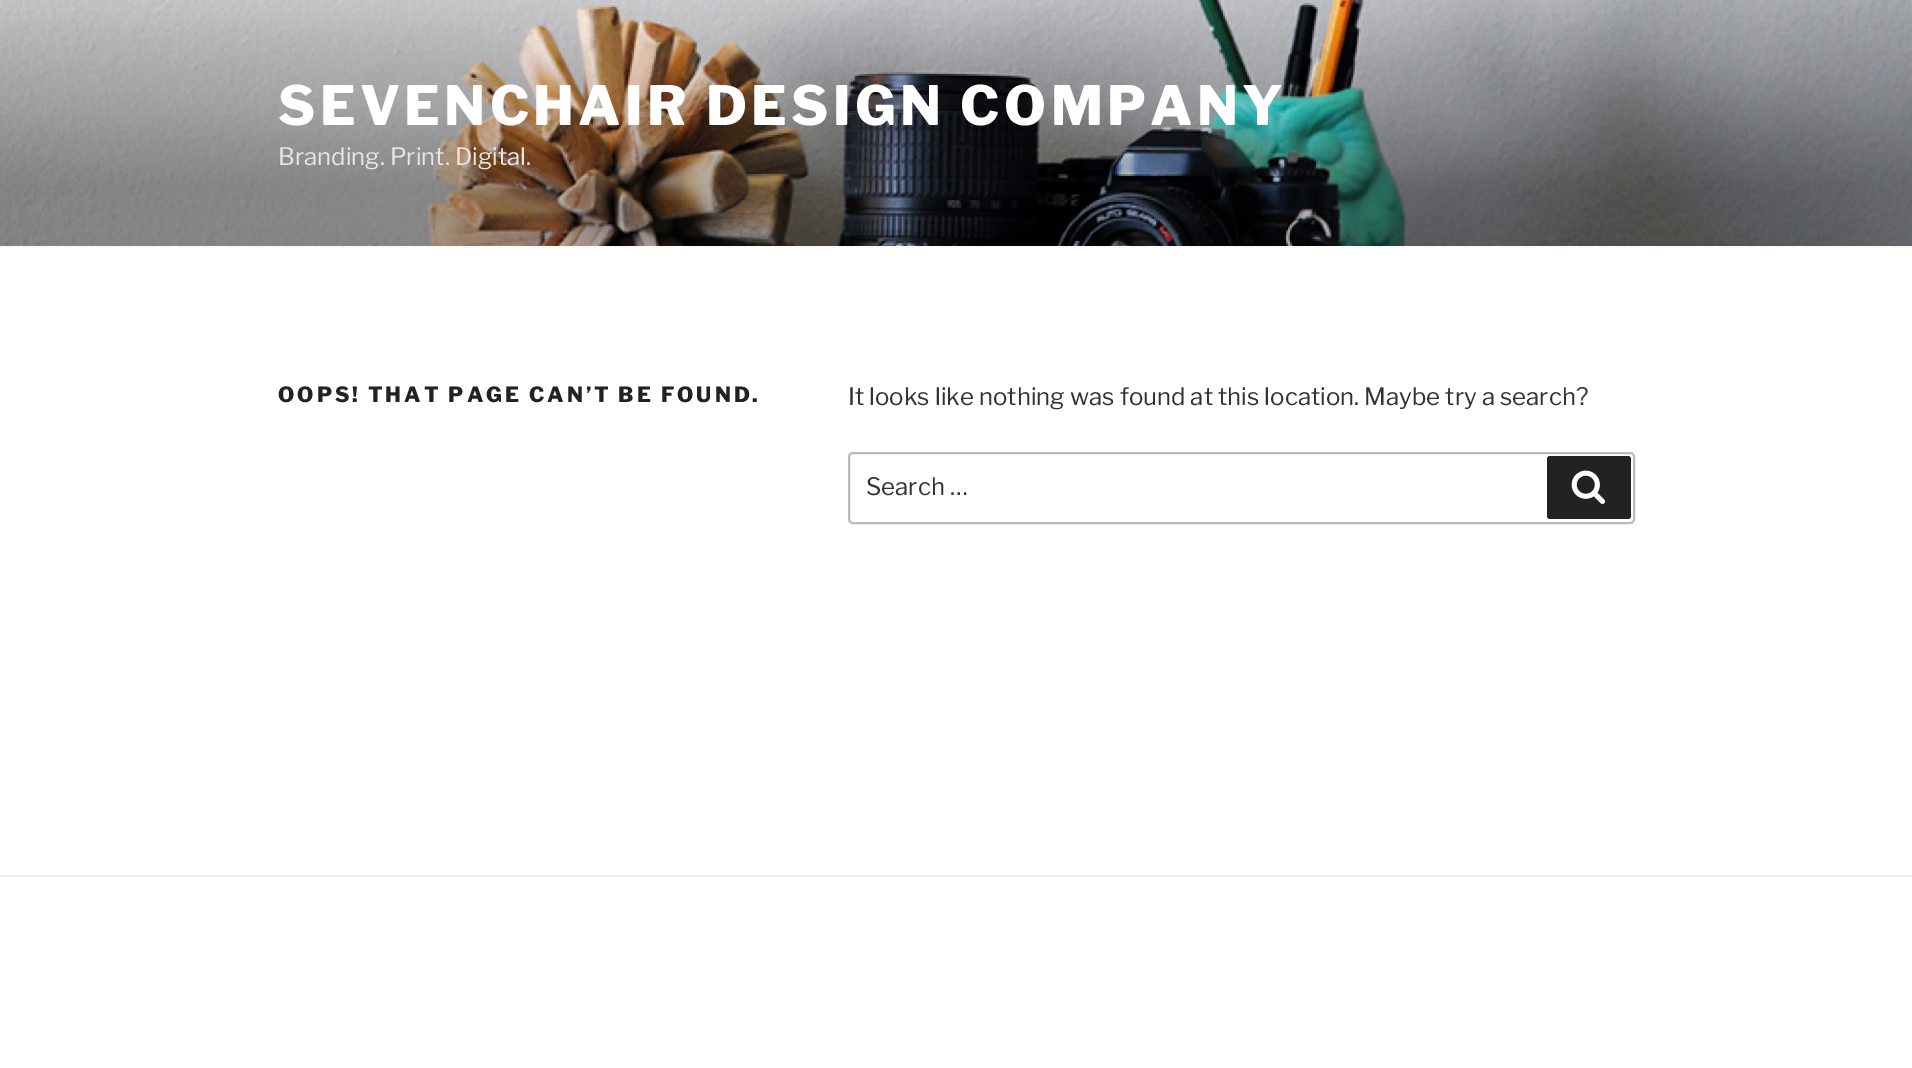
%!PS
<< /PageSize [1912 1068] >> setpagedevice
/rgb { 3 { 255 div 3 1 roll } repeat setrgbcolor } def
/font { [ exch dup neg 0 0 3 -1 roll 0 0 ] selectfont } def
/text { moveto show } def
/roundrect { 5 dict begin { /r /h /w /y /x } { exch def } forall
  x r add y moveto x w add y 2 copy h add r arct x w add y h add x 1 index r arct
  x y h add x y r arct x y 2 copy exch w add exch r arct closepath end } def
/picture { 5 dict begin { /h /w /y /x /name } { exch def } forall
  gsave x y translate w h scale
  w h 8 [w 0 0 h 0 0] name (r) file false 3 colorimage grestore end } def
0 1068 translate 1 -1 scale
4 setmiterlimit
255 255 255 rgb
0 0 1912 1068 rectfill
250 250 250 rgb
0 246 1912 2 rectfill
(img_01.rgb) 0 0 1912 246 picture
187 187 187 rgb
2 setlinewidth
849 453 785 70 4 roundrect stroke
34 34 34 rgb
1547 456 84 63 3 roundrect fill
(img_02.rgb) 1571 470 34 34 picture
238 238 238 rgb
0 875 1912 2 rectfill
/LibreFranklin-ExtraBold 54 font
255 255 255 rgb
278 125 moveto 4.3 0 (SEVENCHAIR DESIGN COMPANY) ashow
/LibreFranklin-Regular 24 font
232 229 227 rgb
(Branding. Print. Digital.) 278 165 text
/LibreFranklin-ExtraBold 21 font
34 34 34 rgb
278 402 moveto 2.95 0 (OOPS! THAT PAGE CAN’T BE FOUND.) ashow
/LibreFranklin-Regular 24 font
51 51 51 rgb
(It looks like nothing was found at this location. Maybe try a search?) 848 405 text
(Search …) 866 495 text
showpage
